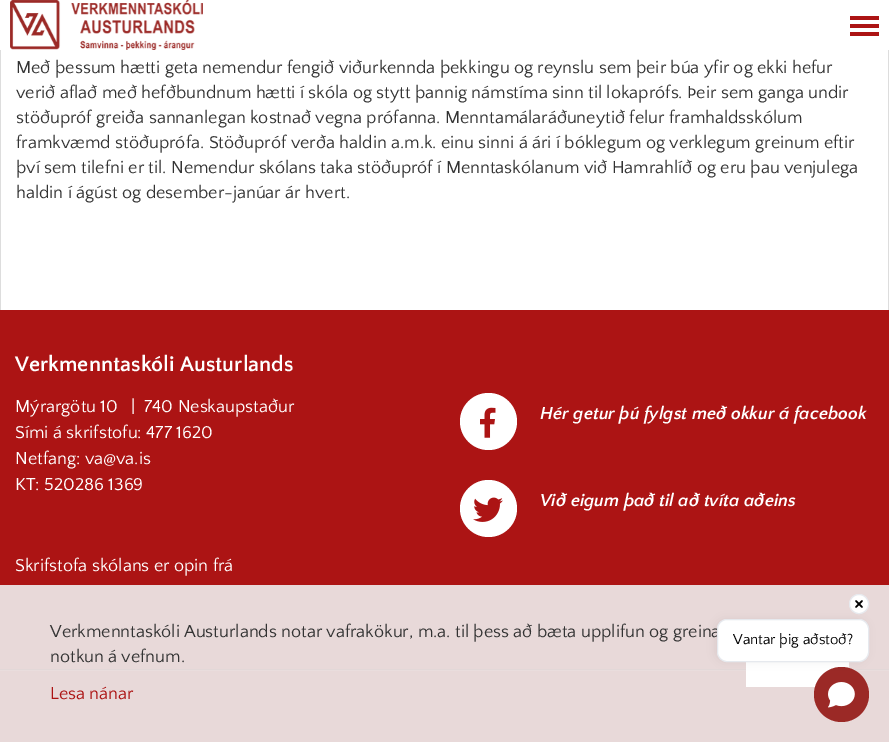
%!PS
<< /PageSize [889 742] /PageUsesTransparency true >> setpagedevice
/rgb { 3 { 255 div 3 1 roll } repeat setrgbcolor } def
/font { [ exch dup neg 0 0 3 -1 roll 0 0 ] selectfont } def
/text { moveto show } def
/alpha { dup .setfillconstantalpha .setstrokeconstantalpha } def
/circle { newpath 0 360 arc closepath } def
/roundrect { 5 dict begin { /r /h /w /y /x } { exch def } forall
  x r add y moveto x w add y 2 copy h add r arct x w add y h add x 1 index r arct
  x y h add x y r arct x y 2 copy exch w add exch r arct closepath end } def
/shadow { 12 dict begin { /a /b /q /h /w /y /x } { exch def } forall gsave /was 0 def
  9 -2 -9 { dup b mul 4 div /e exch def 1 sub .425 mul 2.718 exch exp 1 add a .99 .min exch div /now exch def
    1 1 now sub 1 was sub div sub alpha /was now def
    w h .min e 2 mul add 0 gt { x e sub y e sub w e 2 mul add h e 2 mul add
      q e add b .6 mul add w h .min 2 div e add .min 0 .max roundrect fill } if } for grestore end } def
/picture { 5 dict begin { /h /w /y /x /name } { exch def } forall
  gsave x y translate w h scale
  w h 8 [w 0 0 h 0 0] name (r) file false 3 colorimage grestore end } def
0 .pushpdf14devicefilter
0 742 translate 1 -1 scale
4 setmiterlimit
172 20 20 rgb
0 0 889 742 rectfill
255 255 255 rgb
0 0 889 50 rectfill
(img_01.rgb) 10 0 193 50 picture
172 20 20 rgb
850 16 29 4 rectfill
850 24 29 4 rectfill
850 32 29 4 rectfill
255 255 255 rgb
1 50 887 260 rectfill
221 221 221 rgb
888 50 1 260 rectfill
0 50 1 260 rectfill
255 255 255 rgb
488.5 421.5 28.5 circle fill
(img_02.rgb) 480 407 16 31 picture
488.5 508.5 28.5 circle fill
(img_03.rgb) 473 497 30 25 picture
120 14 14 rgb
0 669 889 1 rectfill
189 67 67 rgb
0 670 889 1 rectfill
0.9 alpha
238 238 238 rgb
0 585 889 157 rectfill
1 alpha
255 255 255 rgb
746 662 103 25 rectfill
155 41 38 rgb
841.5 694.5 27.5 circle fill
0 0 0 rgb
715 619 152 43 10 5 0.05 shadow
255 255 255 rgb
859 604 9.5 circle gsave fill grestore
230 233 238 rgb
stroke
0 0 0 rgb
1.5 setlinewidth
1 setlinecap
1 setlinejoin
856 607 moveto 6 -6 rlineto 856 601 moveto 6 6 rlineto stroke
(img_04.rgb) 828 682 27 26 picture
/QuattrocentoSans-Regular 18 font
51 51 51 rgb
(Með þessum hætti geta nemendur fengið viðurkennda þekkingu og reynslu sem þeir búa yfir og ekki hefur) 16 73 text
(verið aflað með hefðbundnum hætti í skóla og stytt þannig námstíma sinn til lokaprófs. Þeir sem ganga undir) 16 98 text
(stöðupróf greiða sannanlegan kostnað vegna prófanna. Menntamálaráðuneytið felur framhaldsskólum) 16 123 text
(framkvæmd stöðuprófa. Stöðupróf verða haldin a.m.k. einu sinni á ári í bóklegum og verklegum greinum eftir) 16 148 text
(því sem tilefni er til. Nemendur skólans taka stöðupróf í Menntaskólanum við Hamrahlíð og eru þau venjulega) 16 173 text
(haldin í ágúst og desember-janúar ár hvert.) 16 198 text
/QuattrocentoSans-Bold 22 font
255 255 255 rgb
(Verkmenntaskóli Austurlands) 15 371 text
/QuattrocentoSans-Regular 18 font
(Mýrargötu 10   |  740 Neskaupstaður) 15 412 text
(Sími á skrifstofu: 477 1620) 15 438 text
(Netfang: va@va.is) 15 464 text
(KT: 520286 1369) 15 490 text
(Skrifstofa skólans er opin frá) 15 571 text
/QuattrocentoSans-BoldItalic 18 font
(Hér getur þú fylgst með okkur á facebook) 540 419 text
(Við eigum það til að tvíta aðeins) 540 506 text
/QuattrocentoSans-Regular 18 font
51 51 51 rgb
(Verkmenntaskóli Austurlands notar vafrakökur, m.a. til þess að bæta upplifun og greina) 50 637 text
(notkun á vefnum.) 50 662 text
172 20 20 rgb
(Lesa nánar) 50 699 text
255 255 255 rgb
717.5 619.5 151 42 9.5 roundrect gsave fill grestore
230 233 238 rgb
1 setlinewidth
0 setlinecap
0 setlinejoin
stroke
/QuattrocentoSans-Regular 15 font
0 0 0 rgb
(Vantar þig aðstoð?) 733 644 text
.poppdf14devicefilter showpage
